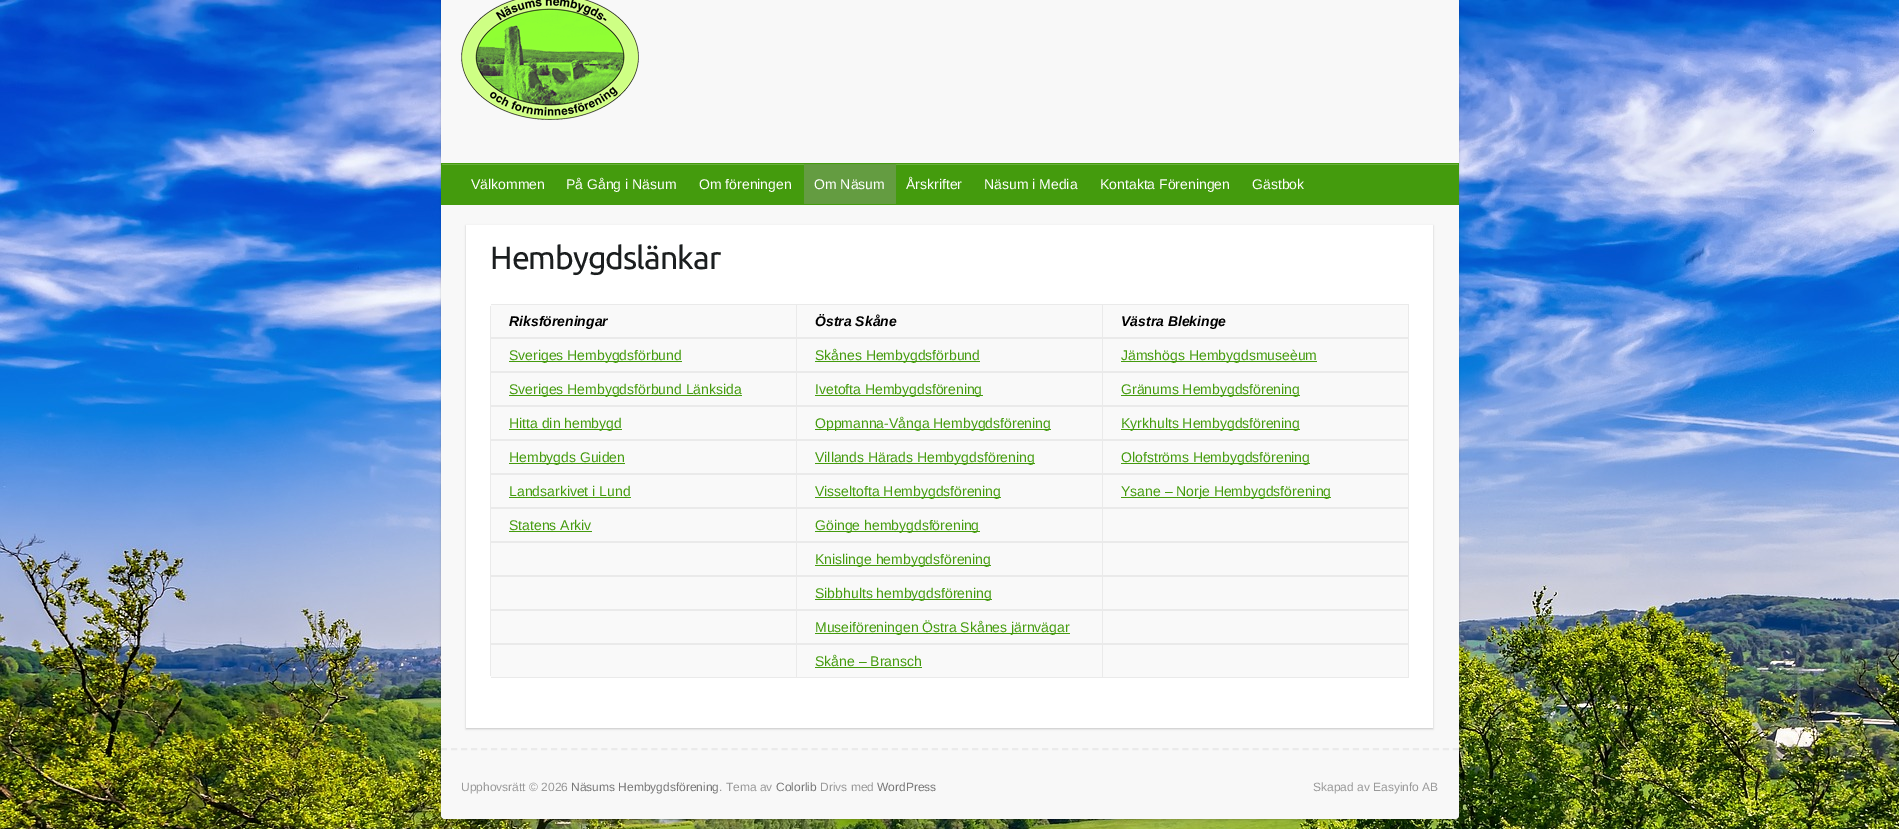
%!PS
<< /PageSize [1899 829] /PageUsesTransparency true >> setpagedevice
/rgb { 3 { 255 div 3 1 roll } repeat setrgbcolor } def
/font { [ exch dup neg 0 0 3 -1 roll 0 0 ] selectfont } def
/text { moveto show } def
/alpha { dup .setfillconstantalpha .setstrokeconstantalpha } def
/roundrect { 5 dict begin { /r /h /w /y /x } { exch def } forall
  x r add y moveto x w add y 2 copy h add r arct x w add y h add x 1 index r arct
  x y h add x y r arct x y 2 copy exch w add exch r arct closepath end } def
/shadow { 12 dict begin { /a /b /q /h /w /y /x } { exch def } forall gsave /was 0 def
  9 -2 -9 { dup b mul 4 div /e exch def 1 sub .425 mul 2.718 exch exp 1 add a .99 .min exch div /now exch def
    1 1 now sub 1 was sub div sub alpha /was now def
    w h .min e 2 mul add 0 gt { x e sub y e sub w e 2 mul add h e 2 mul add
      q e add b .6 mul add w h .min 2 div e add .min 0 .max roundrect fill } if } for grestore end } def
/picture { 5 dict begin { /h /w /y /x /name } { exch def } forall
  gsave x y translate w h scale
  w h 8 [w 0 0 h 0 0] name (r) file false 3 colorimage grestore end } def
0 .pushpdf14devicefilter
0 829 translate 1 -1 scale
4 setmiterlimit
255 255 255 rgb
0 0 1899 829 rectfill
(img_01.rgb) 0 0 1899 829 picture
0 0 0 rgb
441 -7 1018 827 4 1 0.2 shadow
248 248 248 rgb
441 -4 1018 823 4 roundrect fill
(img_02.rgb) 461 0 178 120 picture
68 155 13 rgb
441 163 1018 42 rectfill
105 175 61 rgb
442 164 1016 1 rectfill
100 156 65 rgb
804 164 92 40 rectfill
0 0 0 rgb
466 226 967 503 0 1 0.2 shadow
255 255 255 rgb
466 225 967 503 rectfill
249 249 249 rgb
490 304 919 374 4 roundrect fill
234 234 234 rgb
490 306 1 370 rectfill
491 304 918 1 rectfill
796 304 1 34 rectfill
491 337 306 2 rectfill
1102 304 1 34 rectfill
797 337 306 2 rectfill
1408 304 1 34 rectfill
1103 337 306 2 rectfill
796 338 1 34 rectfill
491 371 306 2 rectfill
68 155 13 rgb
509 361 173 1 rectfill
234 234 234 rgb
1102 338 1 34 rectfill
797 371 306 2 rectfill
68 155 13 rgb
815 361 165 1 rectfill
234 234 234 rgb
1408 338 1 34 rectfill
1103 371 306 2 rectfill
68 155 13 rgb
1121 361 196 1 rectfill
234 234 234 rgb
796 372 1 34 rectfill
491 405 306 2 rectfill
68 155 13 rgb
509 395 233 1 rectfill
234 234 234 rgb
1102 372 1 34 rectfill
797 405 306 2 rectfill
68 155 13 rgb
815 395 168 1 rectfill
234 234 234 rgb
1408 372 1 34 rectfill
1103 405 306 2 rectfill
68 155 13 rgb
1121 395 179 1 rectfill
234 234 234 rgb
796 406 1 34 rectfill
491 439 306 2 rectfill
68 155 13 rgb
509 429 113 1 rectfill
234 234 234 rgb
1102 406 1 34 rectfill
797 439 306 2 rectfill
68 155 13 rgb
815 429 236 1 rectfill
234 234 234 rgb
1408 406 1 34 rectfill
1103 439 306 2 rectfill
68 155 13 rgb
1121 429 179 1 rectfill
234 234 234 rgb
796 440 1 34 rectfill
491 473 306 2 rectfill
68 155 13 rgb
509 463 116 1 rectfill
234 234 234 rgb
1102 440 1 34 rectfill
797 473 306 2 rectfill
68 155 13 rgb
815 463 220 1 rectfill
234 234 234 rgb
1408 440 1 34 rectfill
1103 473 306 2 rectfill
68 155 13 rgb
1121 463 189 1 rectfill
234 234 234 rgb
796 474 1 34 rectfill
491 507 306 2 rectfill
68 155 13 rgb
509 497 122 1 rectfill
234 234 234 rgb
1102 474 1 34 rectfill
797 507 306 2 rectfill
68 155 13 rgb
815 497 186 1 rectfill
234 234 234 rgb
1408 474 1 34 rectfill
1103 507 306 2 rectfill
68 155 13 rgb
1121 497 210 1 rectfill
234 234 234 rgb
796 508 1 34 rectfill
491 541 306 2 rectfill
68 155 13 rgb
509 531 83 1 rectfill
234 234 234 rgb
1102 508 1 34 rectfill
797 541 306 2 rectfill
68 155 13 rgb
815 531 165 1 rectfill
234 234 234 rgb
1408 508 1 34 rectfill
1103 541 306 2 rectfill
796 542 1 34 rectfill
491 575 306 2 rectfill
1102 542 1 34 rectfill
797 575 306 2 rectfill
68 155 13 rgb
815 565 176 1 rectfill
234 234 234 rgb
1408 542 1 34 rectfill
1103 575 306 2 rectfill
796 576 1 34 rectfill
491 609 306 2 rectfill
1102 576 1 34 rectfill
797 609 306 2 rectfill
68 155 13 rgb
815 599 177 1 rectfill
234 234 234 rgb
1408 576 1 34 rectfill
1103 609 306 2 rectfill
796 610 1 34 rectfill
491 643 306 2 rectfill
1102 610 1 34 rectfill
797 643 306 2 rectfill
68 155 13 rgb
815 633 255 1 rectfill
234 234 234 rgb
1408 610 1 34 rectfill
1103 643 306 2 rectfill
796 644 1 34 rectfill
491 677 306 1 rectfill
1102 644 1 34 rectfill
797 677 306 1 rectfill
68 155 13 rgb
815 667 107 1 rectfill
234 234 234 rgb
1408 644 1 34 rectfill
1103 677 306 1 rectfill
2 setlinewidth
[6 4.02] 0 setdash
441 749 moveto 1018 0 rlineto stroke
/LiberationSans-Regular 14 font
255 255 255 rgb
(Välkommen) 471 189 text
(På Gång i Näsum) 566 189 text
(Om föreningen) 699 189 text
(Om Näsum) 814 189 text
(Årskrifter) 906 189 text
(Näsum i Media) 984 189 text
(Kontakta Föreningen) 1100 189 text
(Gästbok) 1252 189 text
/Ubuntu-Regular 32 font
27 30 31 rgb
490 269 moveto -1 0 (Hembygdslänkar) ashow
/LiberationSans-BoldItalic 14 font
0 0 0 rgb
(Riksföreningar) 509 326 text
(Östra Skåne) 815 326 text
(Västra Blekinge) 1121 326 text
/LiberationSans-Regular 14 font
68 155 13 rgb
(Sveriges Hembygdsförbund) 509 360 text
(Skånes Hembygdsförbund) 815 360 text
(Jämshögs Hembygdsmuseèum) 1121 360 text
(Sveriges Hembygdsförbund Länksida) 509 394 text
(Ivetofta Hembygdsförening) 815 394 text
(Gränums Hembygdsförening) 1121 394 text
(Hitta din hembygd) 509 428 text
(Oppmanna-Vånga Hembygdsförening) 815 428 text
(Kyrkhults Hembygdsförening) 1121 428 text
(Hembygds Guiden) 509 462 text
(Villands Härads Hembygdsförening) 815 462 text
(Olofströms Hembygdsförening) 1121 462 text
(Landsarkivet i Lund) 509 496 text
(Visseltofta Hembygdsförening) 815 496 text
(Ysane – Norje Hembygdsförening) 1121 496 text
(Statens Arkiv) 509 530 text
(Göinge hembygdsförening) 815 530 text
(Knislinge hembygdsförening) 815 564 text
(Sibbhults hembygdsförening) 815 598 text
(Museiföreningen Östra Skånes järnvägar) 815 632 text
(Skåne – Bransch) 815 666 text
/LiberationSans-Regular 12 font
153 153 153 rgb
(Upphovsrätt © 2026) 461 791 text
119 119 119 rgb
(Näsums Hembygdsförening) 571 791 text
153 153 153 rgb
(. Tema av) 719 791 text
119 119 119 rgb
(Colorlib) 776 791 text
153 153 153 rgb
(Drivs med) 820 791 text
119 119 119 rgb
(WordPress) 877 791 text
153 153 153 rgb
(Skapad av Easyinfo AB) 1313 791 text
.poppdf14devicefilter showpage
